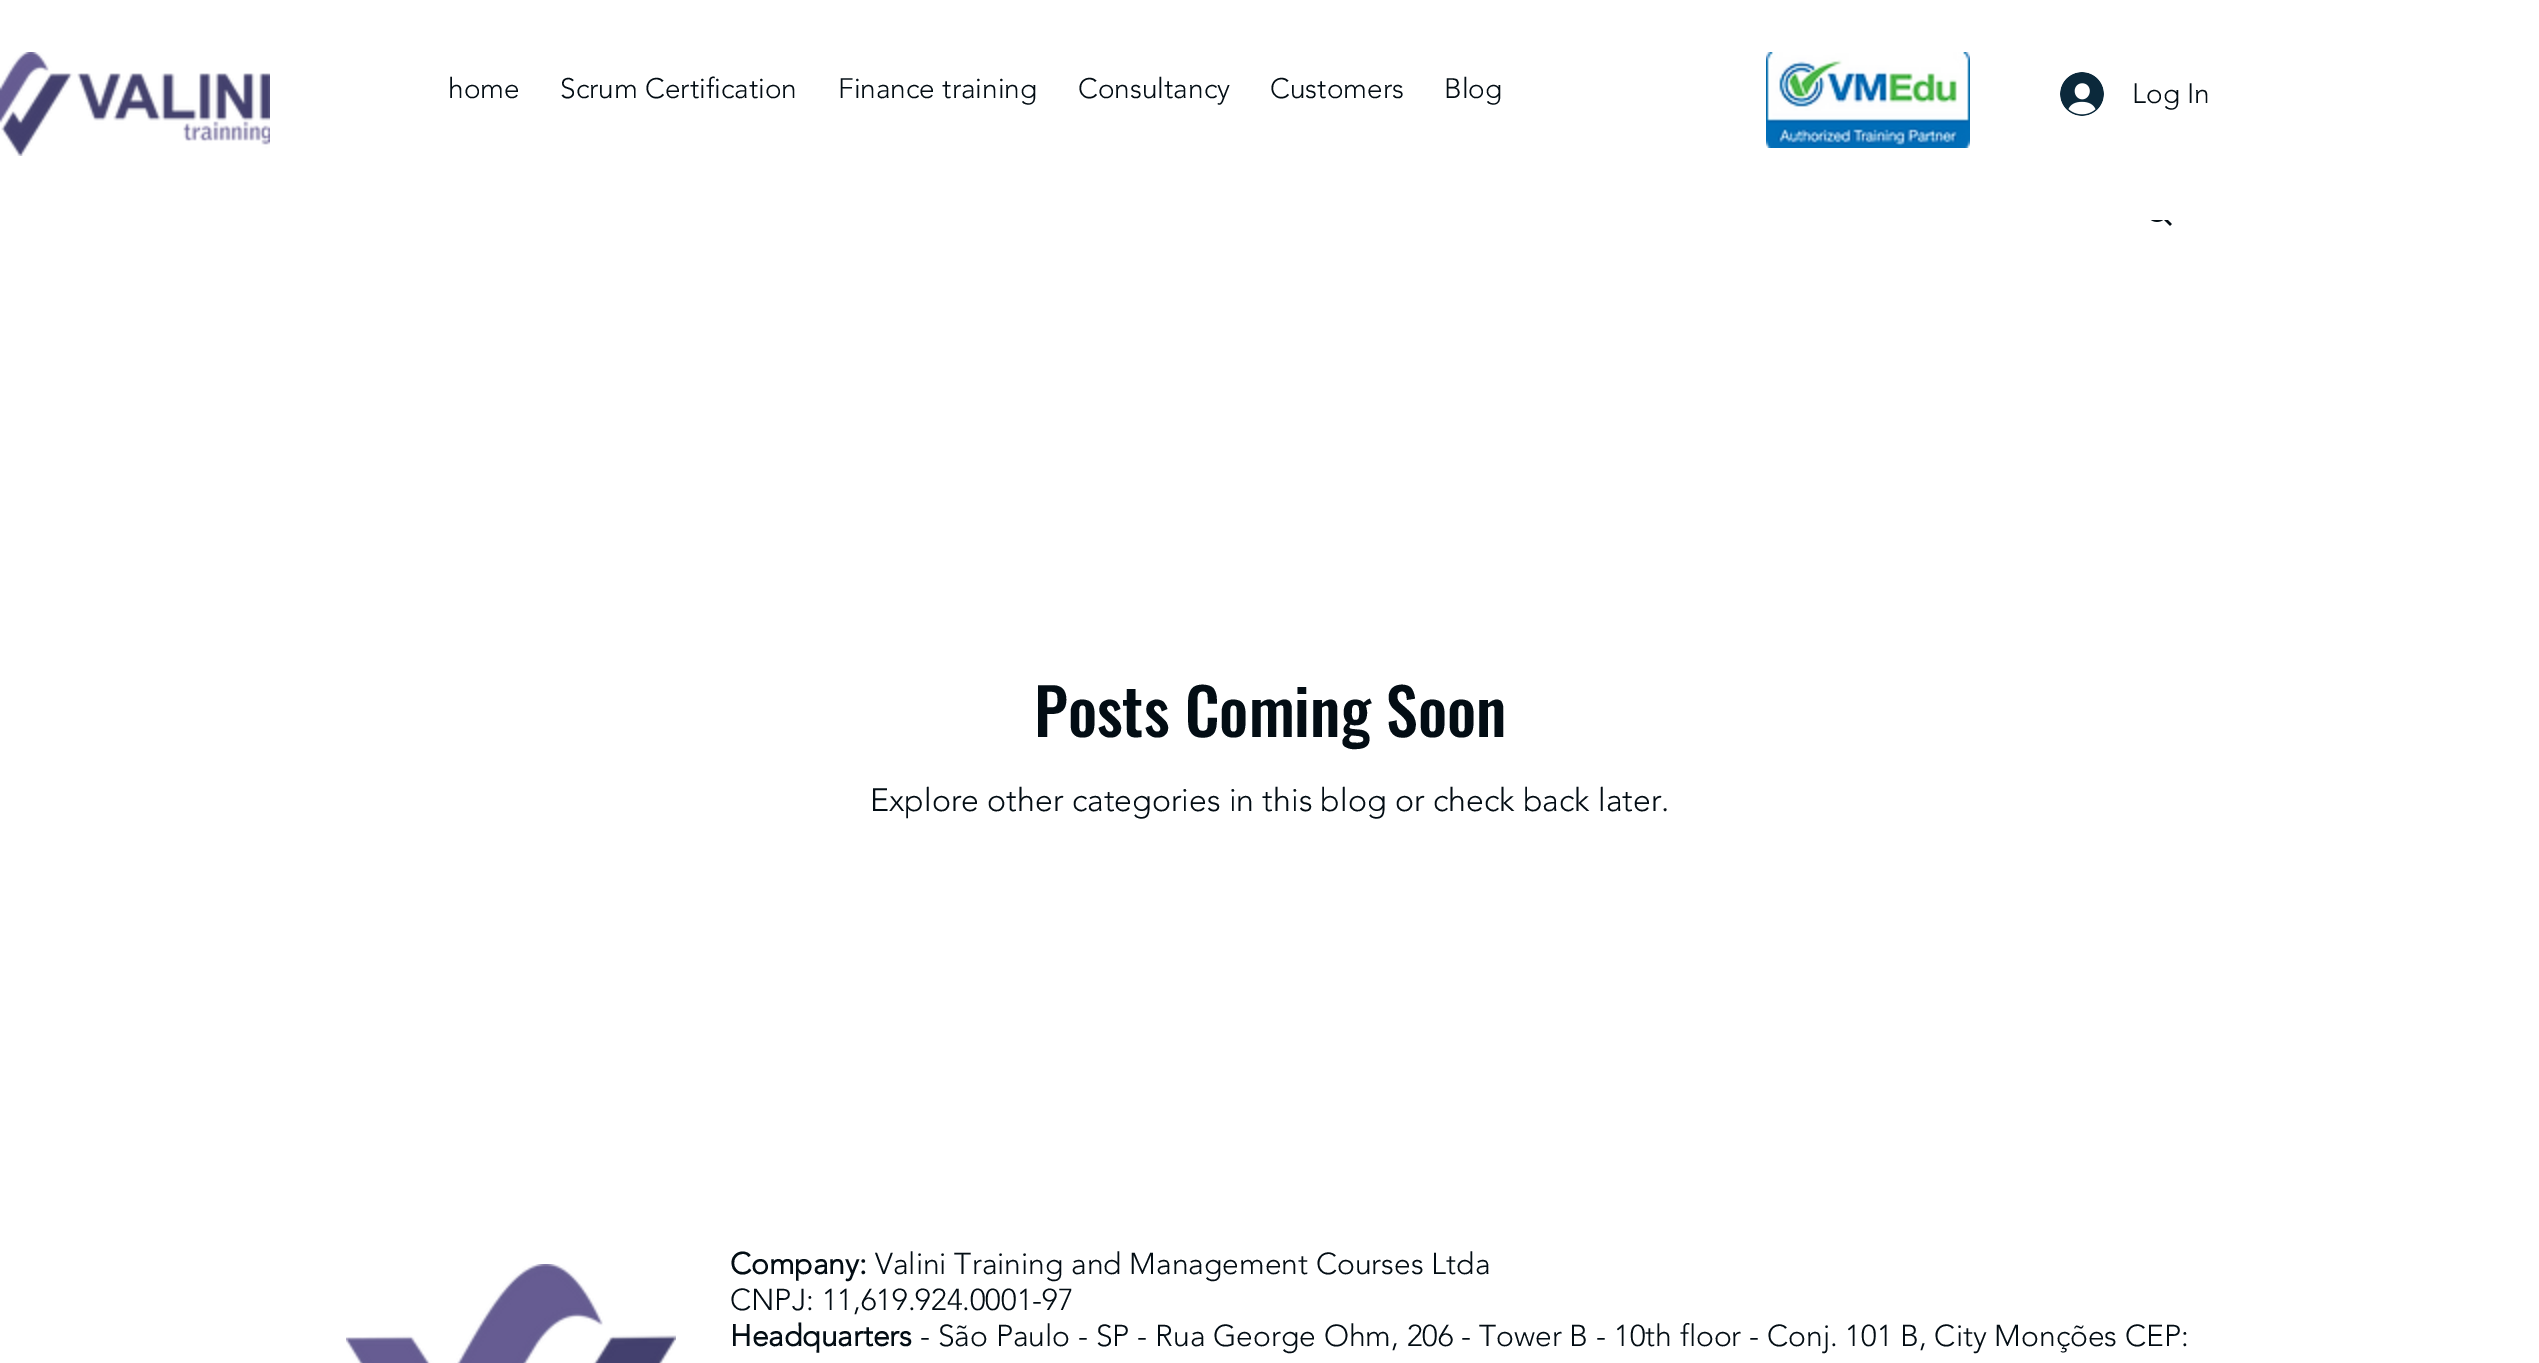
%!PS
<< /PageSize [2539 1363] >> setpagedevice
/rgb { 3 { 255 div 3 1 roll } repeat setrgbcolor } def
/font { [ exch dup neg 0 0 3 -1 roll 0 0 ] selectfont } def
/text { moveto show } def
/picture { 5 dict begin { /h /w /y /x /name } { exch def } forall
  gsave x y translate w h scale
  w h 8 [w 0 0 h 0 0] name (r) file false 3 colorimage grestore end } def
0 1363 translate 1 -1 scale
4 setmiterlimit
255 255 255 rgb
0 0 2539 1363 rectfill
(img_01.rgb) 0 52 270 104 picture
(img_02.rgb) 1766 52 204 96 picture
(img_03.rgb) 2060 72 44 44 picture
(img_04.rgb) 2150 220 22 6 picture
(img_05.rgb) 346 1264 330 99 picture
/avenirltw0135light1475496-Light 28 font
3 13 20 rgb
(home) 448 98 text
(Scrum Certification) 560 98 text
(Finance training) 838 98 text
(Consultancy) 1078 98 text
(Customers) 1270 98 text
(Blog) 1444 98 text
(Log In) 2132 103 text
/Oswald-Medium 64 font
(Posts Coming Soon) 1034 737 text
/avenirltw0135light1475496-Light 32 font
(Explore other categories in this blog or check back later.) 870 811 text
/avenirltw0135light1475496-Bold 30 font
(Company:) 730 1274 text
/avenirltw0135light1475496-Light 30 font
(Valini Training and Management Courses Ltda) 875 1274 text
(CNPJ: 11,619.924.0001-97) 730 1310 text
/avenirltw0135light1475496-Bold 30 font
(Headquarters) 730 1346 text
/avenirltw0135light1475496-Light 30 font
(- São Paulo - SP - Rua George Ohm, 206 - Tower B - 10th floor - Conj. 101 B, City Monções CEP:) 920 1346 text
showpage
